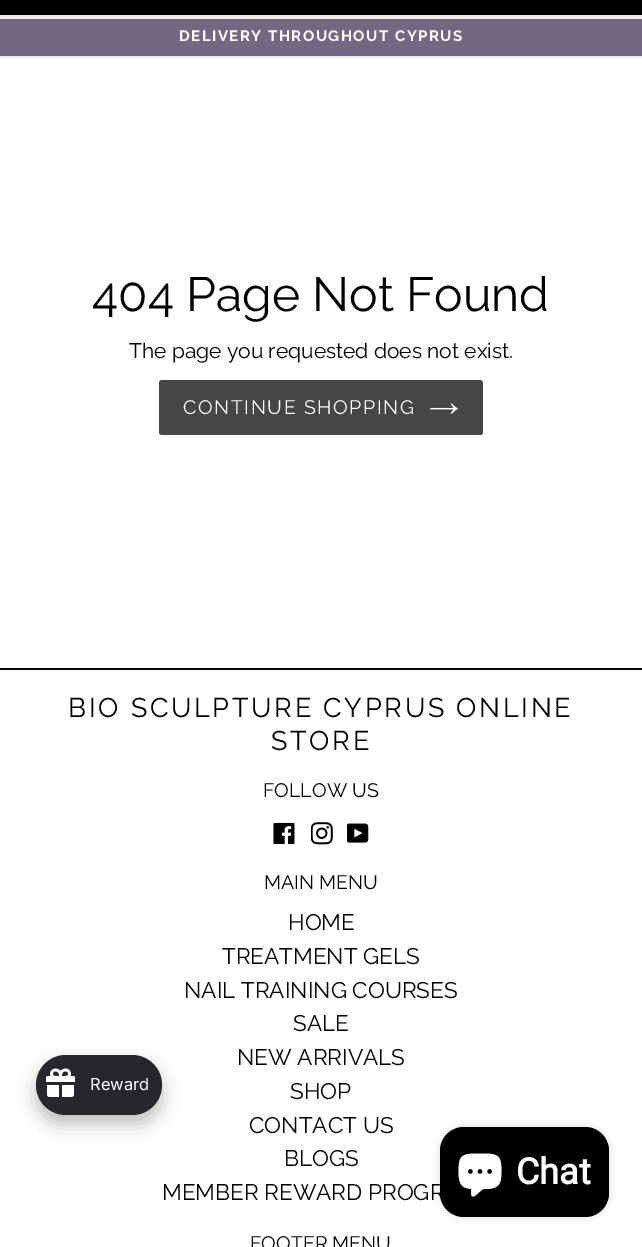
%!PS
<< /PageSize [642 1247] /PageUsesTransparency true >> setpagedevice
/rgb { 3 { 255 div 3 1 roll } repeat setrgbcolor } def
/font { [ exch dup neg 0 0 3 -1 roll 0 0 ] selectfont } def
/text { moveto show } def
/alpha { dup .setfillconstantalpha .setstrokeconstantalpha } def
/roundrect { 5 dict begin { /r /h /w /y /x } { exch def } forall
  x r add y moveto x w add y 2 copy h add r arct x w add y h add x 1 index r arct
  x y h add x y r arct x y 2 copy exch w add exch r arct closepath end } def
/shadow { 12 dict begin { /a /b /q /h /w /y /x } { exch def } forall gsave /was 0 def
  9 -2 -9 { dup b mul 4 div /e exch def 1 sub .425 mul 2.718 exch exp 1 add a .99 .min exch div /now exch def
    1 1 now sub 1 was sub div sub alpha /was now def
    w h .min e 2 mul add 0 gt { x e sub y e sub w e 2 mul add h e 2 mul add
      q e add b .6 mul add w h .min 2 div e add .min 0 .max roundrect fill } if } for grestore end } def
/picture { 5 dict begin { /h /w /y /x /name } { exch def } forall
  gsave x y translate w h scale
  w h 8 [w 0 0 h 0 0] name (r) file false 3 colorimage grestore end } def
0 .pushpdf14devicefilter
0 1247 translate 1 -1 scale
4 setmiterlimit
255 255 255 rgb
0 0 642 1247 rectfill
0 0 0 rgb
0 0 642 15 rectfill
235 235 235 rgb
0 15 642 4 rectfill
114 104 129 rgb
0 19 642 37 rectfill
235 235 235 rgb
0 56 642 2 rectfill
71 69 69 rgb
159 380 324 55 3 roundrect fill
(img_01.rgb) 430 403 28 11 picture
0 0 0 rgb
0 668 642 2 rectfill
(img_02.rgb) 273 822 22 22 picture
(img_03.rgb) 311 822 22 23 picture
(img_04.rgb) 347 823 22 20 picture
36 1064 126 60 30 9 0.25 shadow
37 39 44 rgb
36 1055 126 60 30 roundrect fill
(img_05.rgb) 46 1068 29 29 picture
0 0 0 rgb
440 1127 169 90 24 4 0.15 shadow
440 1127 169 90 24 roundrect fill
(img_06.rgb) 458 1153 44 44 picture
/Raleway-Bold 15 font
255 255 255 rgb
179 41 moveto 1.5 0 (DELIVERY THROUGHOUT CYPRUS) ashow
/Raleway-Regular 48 font
0 0 0 rgb
(404 Page Not Found) 92 311 text
/Raleway-Regular 21 font
(The page you requested does not exist.) 129 358 text
/Raleway-Regular 19.5 font
255 255 255 rgb
183 414 moveto 1.6 0 (CONTINUE SHOPPING) ashow
/Raleway-Regular 27 font
0 0 0 rgb
68 717 moveto 2.7 0 (BIO SCULPTURE CYPRUS ONLINE) ashow
271 750 moveto 2.7 0 (STORE) ashow
/Raleway-Regular 19.5 font
(FOLLOW US) 263 797 text
(MAIN MENU) 264 889 text
/Raleway-Regular 22.5 font
(HOME) 288 930 text
(TREATMENT GELS) 222 964 text
(NAIL TRAINING COURSES) 184 998 text
(SALE) 293 1031 text
(NEW ARRIVALS) 237 1065 text
(SHOP) 290 1099 text
(CONTACT US) 249 1133 text
(BLOGS) 284 1166 text
(MEMBER REWARD PROGR) 162 1200 text
/Raleway-Regular 19.5 font
(FOOTER MENU) 250 1250 text
/Inter-Regular 16.5 font
255 255 255 rgb
(Reward) 90 1090 text
/Roboto-Bold 36 font
(Chat) 516 1184 text
.poppdf14devicefilter showpage
